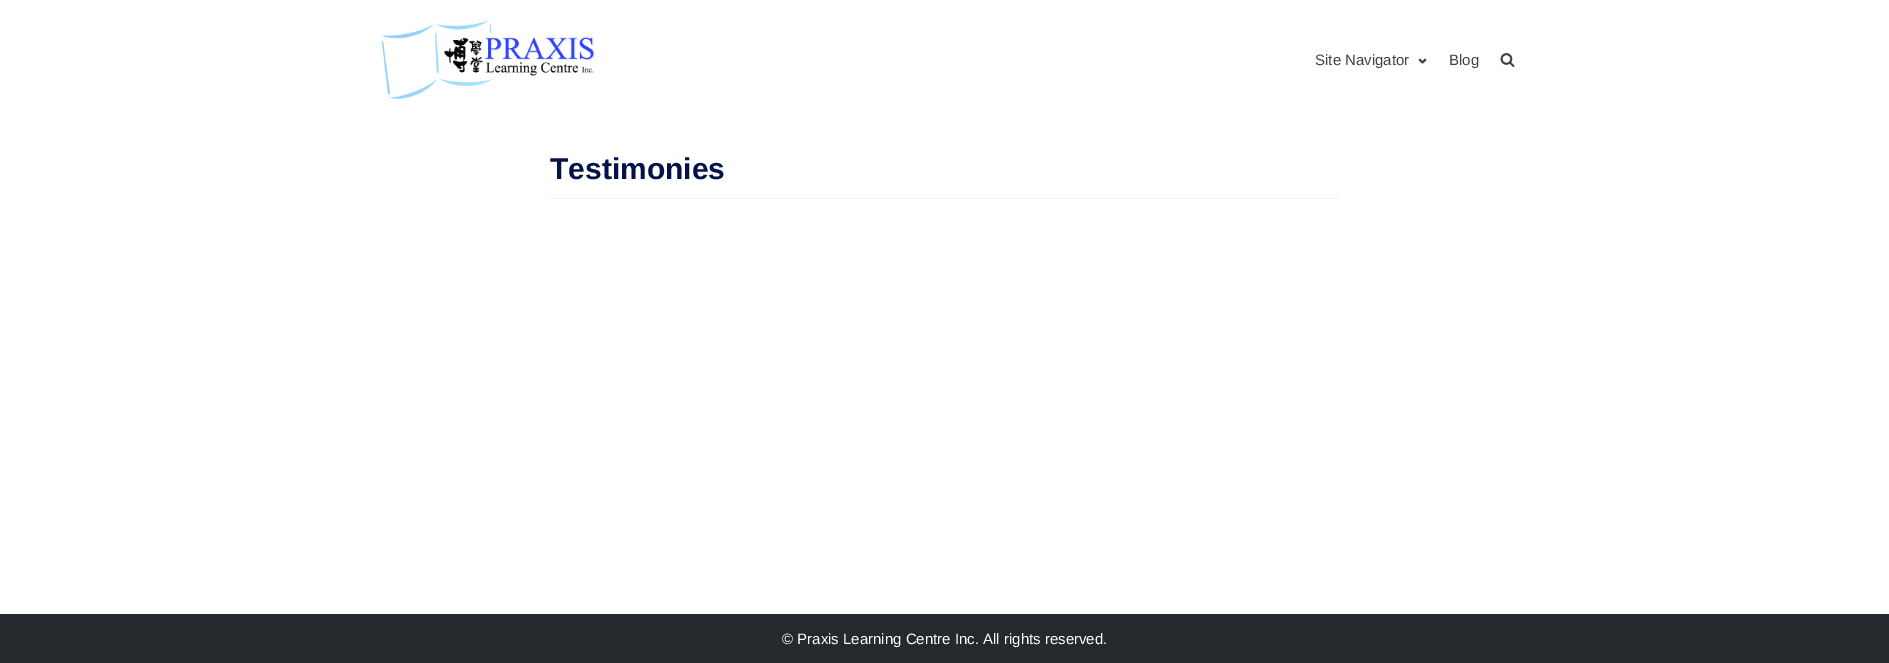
%!PS
<< /PageSize [1889 663] >> setpagedevice
/rgb { 3 { 255 div 3 1 roll } repeat setrgbcolor } def
/font { [ exch dup neg 0 0 3 -1 roll 0 0 ] selectfont } def
/text { moveto show } def
/picture { 5 dict begin { /h /w /y /x /name } { exch def } forall
  gsave x y translate w h scale
  w h 8 [w 0 0 h 0 0] name (r) file false 3 colorimage grestore end } def
0 663 translate 1 -1 scale
4 setmiterlimit
255 255 255 rgb
0 0 1889 663 rectfill
(img_01.rgb) 381 20 214 79 picture
64 66 72 rgb
1426.5 60 moveto -3.5 3.5 rlineto -1.5 -1.5 rlineto 3.5 -3.5 rlineto closepath fill
1423.5 62 moveto -1.5 1.5 rlineto -3.5 -3.5 rlineto 1.5 -1.5 rlineto closepath fill
(img_02.rgb) 1500 53 15 14 picture
240 240 240 rgb
550 198 789 1 rectfill
36 41 46 rgb
0 614 1889 49 rectfill
/LiberationSans-Regular 15 font
64 66 72 rgb
(Site Navigator) 1315 65 text
(Blog) 1449 65 text
/LiberationSans-Bold 30 font
2 19 71 rgb
(Testimonies) 550 179 text
/LiberationSans-Regular 15 font
253 253 253 rgb
(© Praxis Learning Centre Inc. All rights reserved.) 782 644 text
showpage
